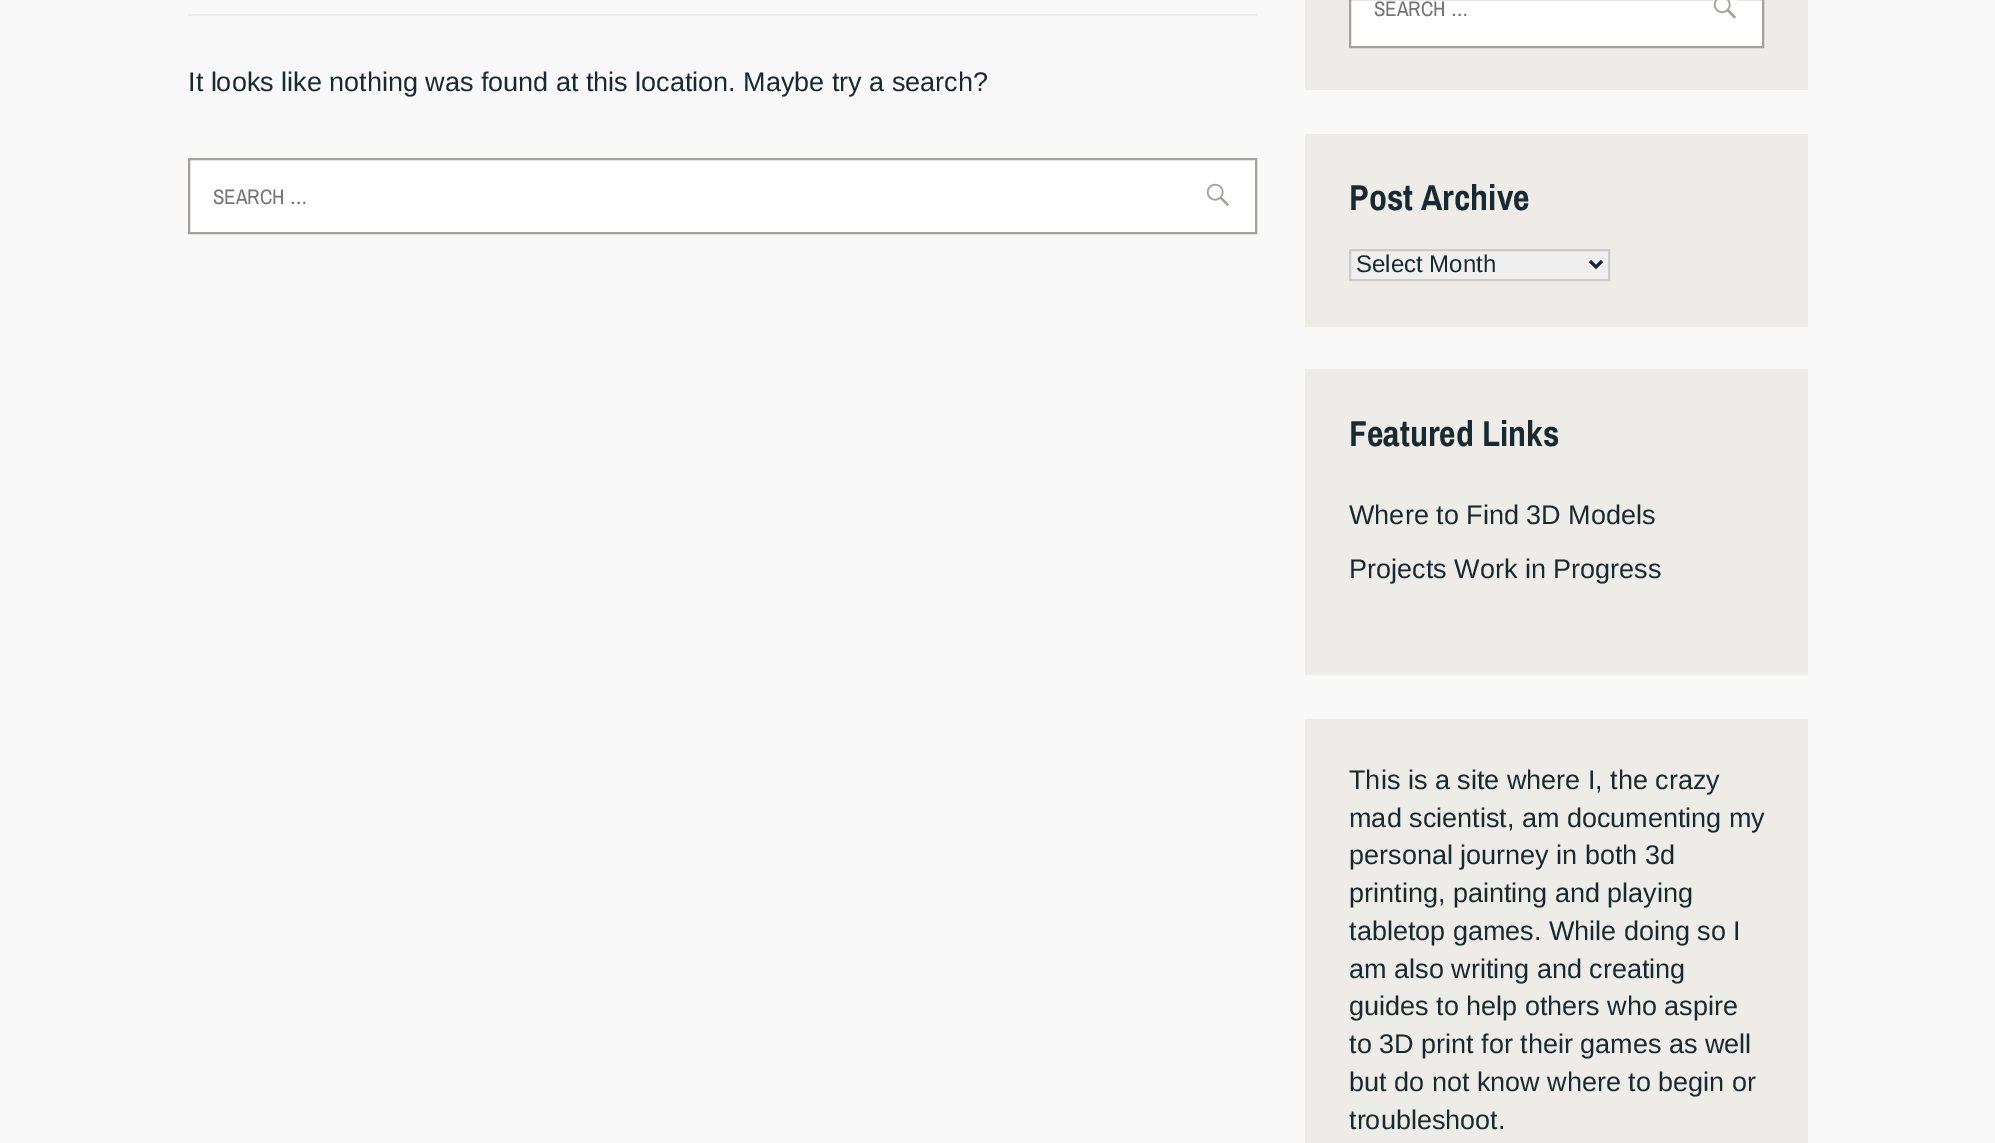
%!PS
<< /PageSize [1995 1143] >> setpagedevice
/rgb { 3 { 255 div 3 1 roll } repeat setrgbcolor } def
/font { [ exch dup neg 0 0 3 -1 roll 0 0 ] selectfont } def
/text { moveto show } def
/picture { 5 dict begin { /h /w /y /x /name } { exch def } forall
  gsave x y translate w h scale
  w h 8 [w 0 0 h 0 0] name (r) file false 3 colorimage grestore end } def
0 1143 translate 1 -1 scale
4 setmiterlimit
249 249 249 rgb
0 0 1995 1143 rectfill
238 236 232 rgb
188 14 1069 2 rectfill
255 255 255 rgb
189 159 moveto 1067 0 rlineto 0 74 rlineto -1067 0 rlineto closepath gsave fill grestore
165 162 157 rgb
2 setlinewidth
stroke
(img_01.rgb) 1206 183 24 24 picture
238 236 232 rgb
1305 0 503 90 rectfill
255 255 255 rgb
1350 -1 moveto 413 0 rlineto 0 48 rlineto -413 0 rlineto closepath gsave fill grestore
165 162 157 rgb
stroke
(img_02.rgb) 1713 0 24 19 picture
238 236 232 rgb
1305 134 503 193 rectfill
239 239 239 rgb
1350 250 moveto 259 0 rlineto 0 30 rlineto -259 0 rlineto closepath gsave fill grestore
204 204 204 rgb
stroke
25 41 48 rgb
3 setlinewidth
1590 261 moveto 6 6 rlineto 6 -6 rlineto stroke
238 236 232 rgb
1305 369 503 306 rectfill
1305 719 503 424 rectfill
/LiberationSans-Regular 27 font
25 41 48 rgb
(It looks like nothing was found at this location. Maybe try a search?) 188 91 text
/ArchivoNarrow-Regular 21 font
117 117 117 rgb
(SEARCH …) 213 204 text
(SEARCH …) 1374 16 text
/ArchivoNarrow-Bold 36 font
25 41 48 rgb
(Post Archive) 1349 210 text
/LiberationSans-Regular 24 font
(Select Month) 1356 272 text
/ArchivoNarrow-Bold 36 font
(Featured Links) 1349 446 text
/LiberationSans-Regular 27 font
(Where to Find 3D Models) 1349 524 text
(Projects Work in Progress) 1349 578 text
(This is a site where I, the crazy) 1349 789 text
(mad scientist, am documenting my) 1349 827 text
(personal journey in both 3d) 1349 864 text
(printing, painting and playing) 1349 902 text
(tabletop games. While doing so I) 1349 940 text
(am also writing and creating) 1349 978 text
(guides to help others who aspire) 1349 1015 text
(to 3D print for their games as well) 1349 1053 text
(but do not know where to begin or) 1349 1091 text
(troubleshoot.) 1349 1129 text
showpage
